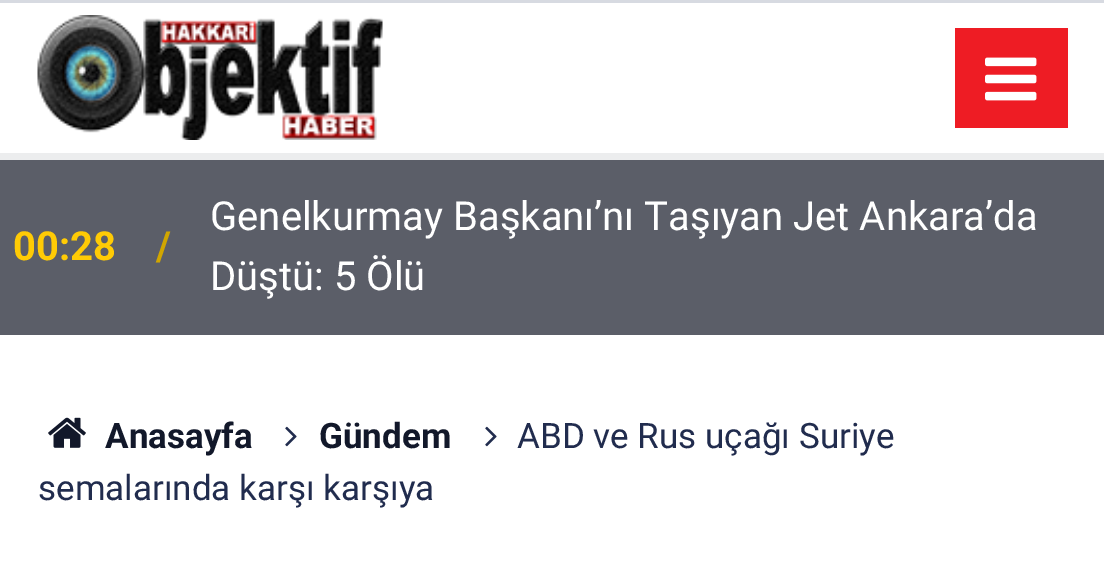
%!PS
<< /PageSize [1104 575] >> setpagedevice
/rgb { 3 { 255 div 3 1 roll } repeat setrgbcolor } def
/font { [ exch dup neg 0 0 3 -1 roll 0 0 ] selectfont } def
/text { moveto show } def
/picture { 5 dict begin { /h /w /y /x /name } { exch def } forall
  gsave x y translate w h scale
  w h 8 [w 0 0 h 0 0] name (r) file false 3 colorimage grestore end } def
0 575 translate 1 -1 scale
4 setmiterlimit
255 255 255 rgb
0 0 1104 575 rectfill
215 218 225 rgb
0 0 1104 3 rectfill
236 237 238 rgb
0 153 1104 7 rectfill
(img_01.rgb) 37 15 346 125 picture
238 28 36 rgb
955 28 113 100 rectfill
(img_02.rgb) 985 57 52 44 picture
91 94 104 rgb
0 160 1104 175 rectfill
(img_03.rgb) 48 417 38 31 picture
(img_04.rgb) 285 426 12 21 picture
(img_04.rgb) 485 426 12 21 picture
/Roboto-Bold 40 font
255 203 5 rgb
(00:28) 13 260 text
209 166 0 rgb
(/) 156 260 text
/Roboto-Regular 40 font
255 255 255 rgb
(Genelkurmay Başkanı’nı Taşıyan Jet Ankara’da) 210 230 text
(Düştü: 5 Ölü) 210 290 text
/Roboto-Bold 35 font
18 24 42 rgb
(Anasayfa) 105 448 text
(Gündem) 319 448 text
/Roboto-Regular 35 font
33 44 78 rgb
(ABD ve Rus uçağı Suriye) 517 448 text
(semalarında karşı karşıya) 38 500 text
showpage
